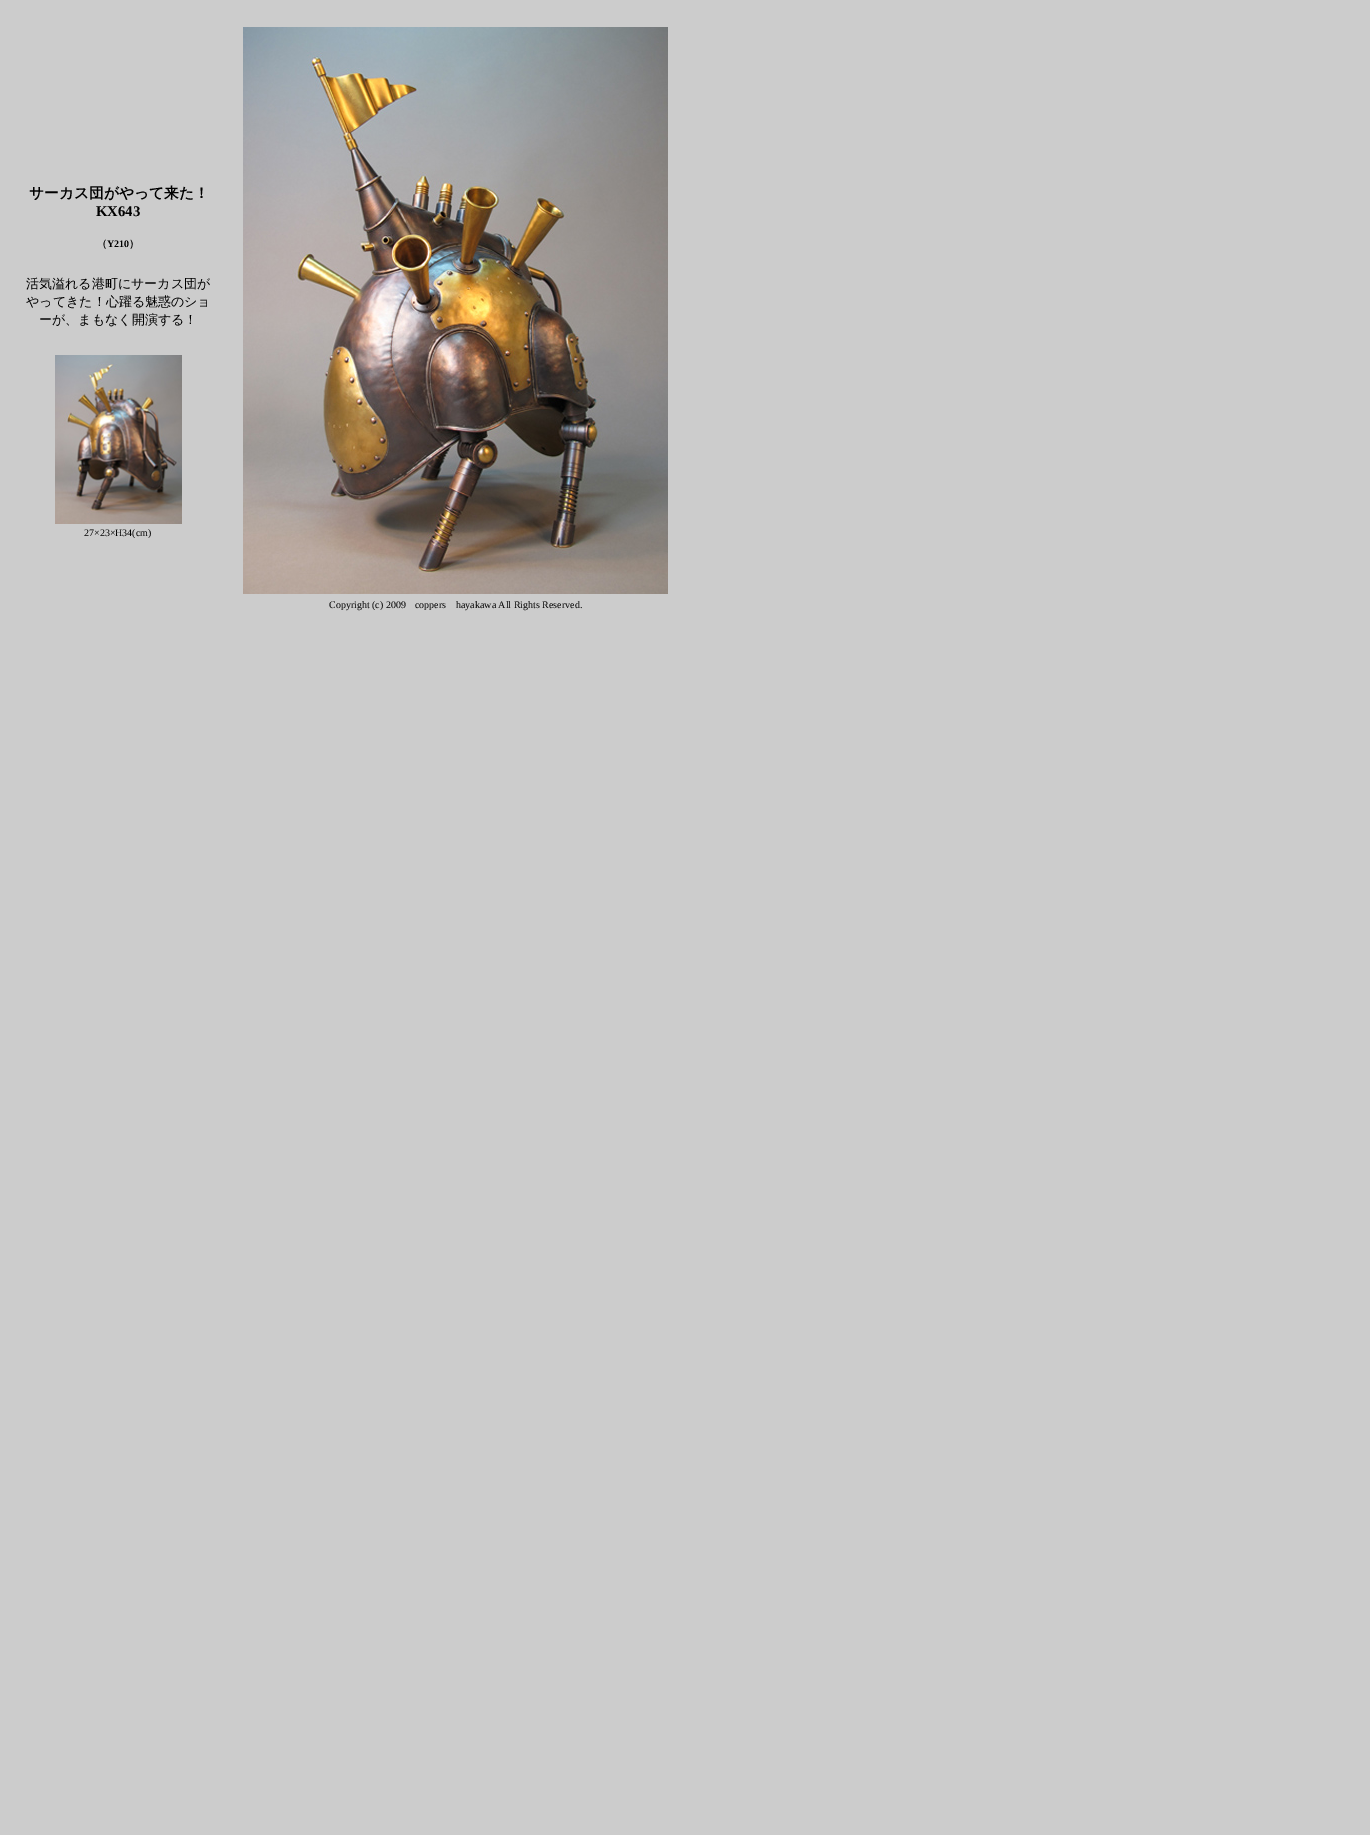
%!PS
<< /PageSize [1370 1835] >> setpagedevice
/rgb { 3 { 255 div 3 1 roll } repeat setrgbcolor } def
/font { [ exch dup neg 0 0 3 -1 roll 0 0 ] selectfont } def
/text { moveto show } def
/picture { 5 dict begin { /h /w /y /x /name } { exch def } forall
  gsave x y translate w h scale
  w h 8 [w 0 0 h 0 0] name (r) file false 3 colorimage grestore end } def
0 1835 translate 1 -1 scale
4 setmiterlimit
204 204 204 rgb
0 0 1370 1835 rectfill
(img_01.rgb) 55 355 127 169 picture
(img_02.rgb) 243 27 425 567 picture
/WenQuanYiZenHei-Bold 14.75 font
0 0 0 rgb
(サーカス団がやって来た！) 29 198 text
/LiberationSerif-Bold 14.75 font
(KX643) 96 216 text
/WenQuanYiZenHei-Bold 10 font
(（) 97 247 text
/LiberationSerif-Bold 10 font
(Y210) 107 247 text
/WenQuanYiZenHei-Bold 10 font
(）) 129 247 text
/WenQuanYiZenHei-Medium 13 font
(活気溢れる港町にサーカス団が) 26 288 text
(やってきた！心躍る魅惑のショ) 26 306 text
(ーが、まもなく開演する！) 39 324 text
/LiberationSerif-Regular 10 font
(27×23×H34\(cm\)) 84 536 text
(Copyright \(c\) 2009) 329 608 text
(coppers) 415 608 text
(hayakawa All Rights Reserved.) 456 608 text
showpage
